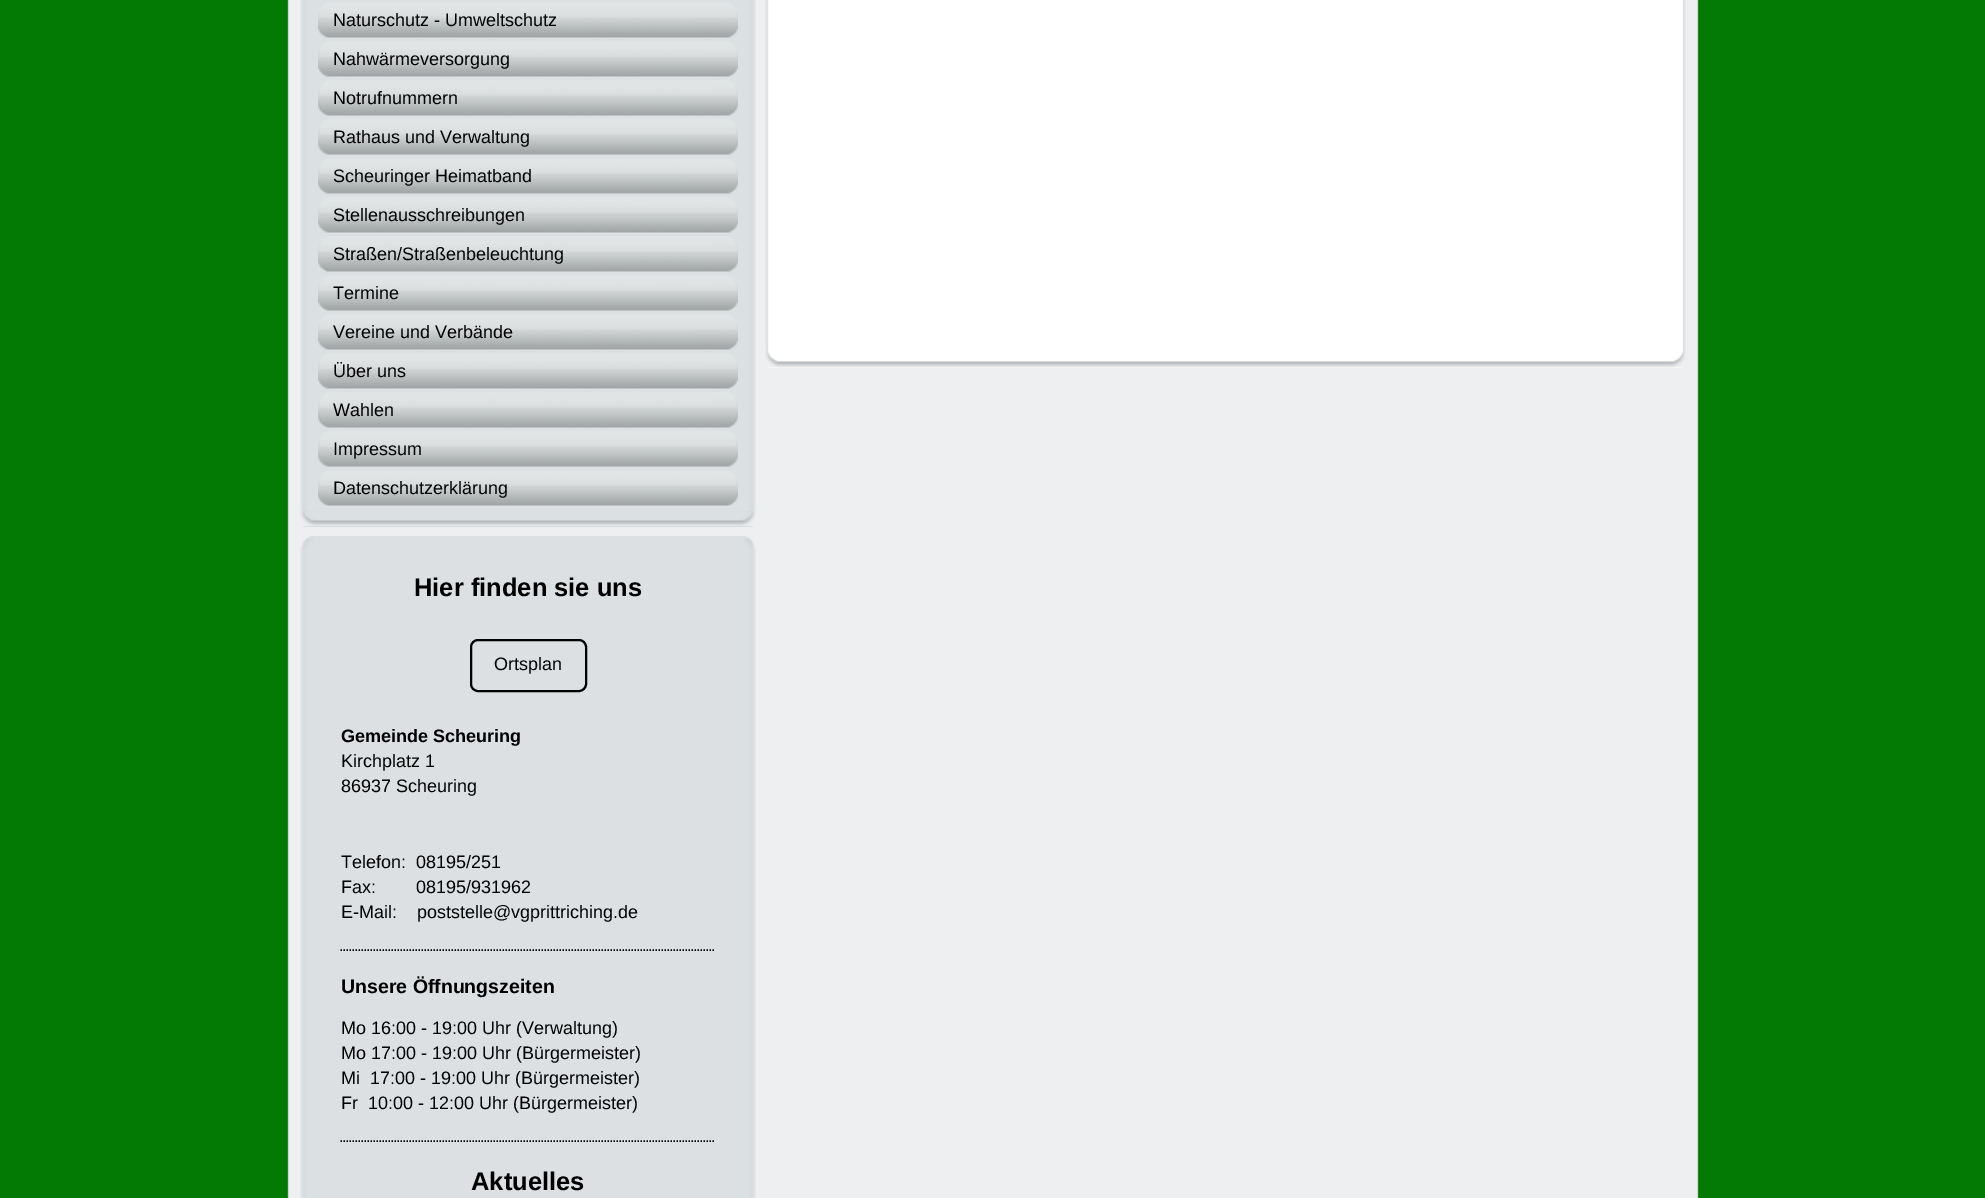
%!PS
<< /PageSize [1985 1198] >> setpagedevice
/rgb { 3 { 255 div 3 1 roll } repeat setrgbcolor } def
/font { [ exch dup neg 0 0 3 -1 roll 0 0 ] selectfont } def
/text { moveto show } def
/roundrect { 5 dict begin { /r /h /w /y /x } { exch def } forall
  x r add y moveto x w add y 2 copy h add r arct x w add y h add x 1 index r arct
  x y h add x y r arct x y 2 copy exch w add exch r arct closepath end } def
/picture { 5 dict begin { /h /w /y /x /name } { exch def } forall
  gsave x y translate w h scale
  w h 8 [w 0 0 h 0 0] name (r) file false 3 colorimage grestore end } def
0 1198 translate 1 -1 scale
4 setmiterlimit
3 122 4 rgb
0 0 1985 1198 rectfill
(img_01.rgb) 286 0 1414 1198 picture
196 204 206 rgb
303 0 450 527 rectfill
(img_02.rgb) 300 0 456 512 picture
(img_03.rgb) 318 2 420 36 picture
(img_03.rgb) 318 41 420 36 picture
(img_03.rgb) 318 80 420 36 picture
(img_03.rgb) 318 119 420 36 picture
(img_03.rgb) 318 158 420 36 picture
(img_03.rgb) 318 197 420 36 picture
(img_03.rgb) 318 236 420 36 picture
(img_03.rgb) 318 275 420 36 picture
(img_03.rgb) 318 314 420 36 picture
(img_03.rgb) 318 353 420 36 picture
(img_03.rgb) 318 392 420 36 picture
(img_03.rgb) 318 431 420 36 picture
(img_03.rgb) 318 470 420 36 picture
(img_04.rgb) 300 511 456 16 picture
303 536 450 662 rectfill
(img_05.rgb) 301 536 454 12 picture
(img_06.rgb) 300 547 456 651 picture
0 0 0 rgb
2 setlinewidth
471 640 115 51 7 roundrect stroke
1.5 setlinewidth
[1.5 1.5] 0 setdash
340.5 950 moveto 375 0 rlineto stroke
340.5 1141 moveto 375 0 rlineto stroke
255 255 255 rgb
768 367 915 1 rectfill
(img_07.rgb) 765 0 921 351 picture
(img_08.rgb) 765 351 921 17 picture
/LiberationSans-Regular 18 font
0 0 0 rgb
(Naturschutz - Umweltschutz) 333 26 text
(Nahwärmeversorgung) 333 65 text
(Notrufnummern) 333 104 text
(Rathaus und Verwaltung) 333 143 text
(Scheuringer Heimatband) 333 182 text
(Stellenausschreibungen) 333 221 text
(Straßen/Straßenbeleuchtung) 333 260 text
(Termine) 333 299 text
(Vereine und Verbände) 333 338 text
(Über uns) 333 377 text
(Wahlen) 333 416 text
(Impressum) 333 455 text
(Datenschutzerklärung) 333 494 text
/LiberationSans-Bold 25.5 font
(Hier finden sie uns) 414 596 text
/LiberationSans-Regular 18 font
(Ortsplan) 494 670 text
/LiberationSans-Bold 18 font
(Gemeinde Scheuring) 341 742 text
/LiberationSans-Regular 18 font
(Kirchplatz 1) 341 767 text
(86937 Scheuring) 341 792 text
(Telefon:  08195/251) 341 868 text
(Fax:        08195/931962) 341 893 text
(E-Mail:    poststelle@vgprittriching.de) 341 918 text
/LiberationSans-Bold 19.5 font
(Unsere Öffnungszeiten) 341 993 text
/LiberationSans-Regular 18 font
(Mo 16:00 - 19:00 Uhr \(Verwaltung\)) 341 1034 text
(Mo 17:00 - 19:00 Uhr \(Bürgermeister\)) 341 1059 text
(Mi  17:00 - 19:00 Uhr \(Bürgermeister\)) 341 1084 text
(Fr  10:00 - 12:00 Uhr \(Bürgermeister\)) 341 1109 text
/LiberationSans-Bold 25.5 font
(Aktuelles) 471 1190 text
showpage
